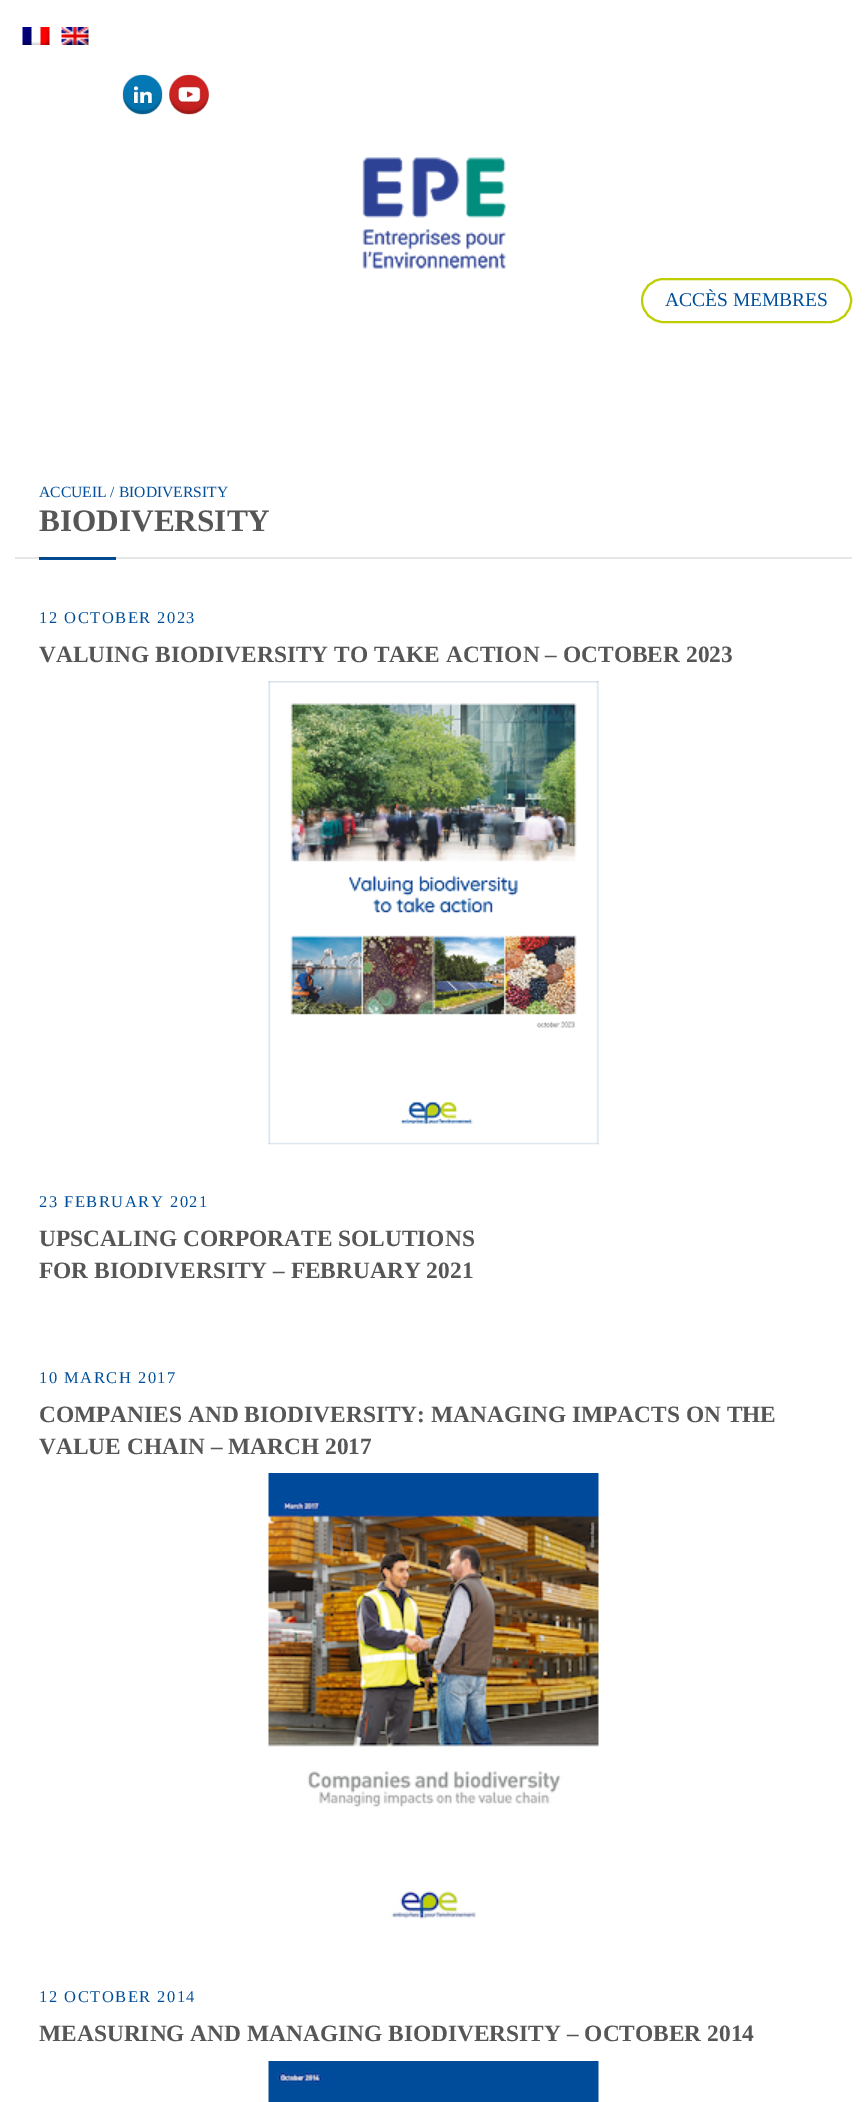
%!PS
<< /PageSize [866 2102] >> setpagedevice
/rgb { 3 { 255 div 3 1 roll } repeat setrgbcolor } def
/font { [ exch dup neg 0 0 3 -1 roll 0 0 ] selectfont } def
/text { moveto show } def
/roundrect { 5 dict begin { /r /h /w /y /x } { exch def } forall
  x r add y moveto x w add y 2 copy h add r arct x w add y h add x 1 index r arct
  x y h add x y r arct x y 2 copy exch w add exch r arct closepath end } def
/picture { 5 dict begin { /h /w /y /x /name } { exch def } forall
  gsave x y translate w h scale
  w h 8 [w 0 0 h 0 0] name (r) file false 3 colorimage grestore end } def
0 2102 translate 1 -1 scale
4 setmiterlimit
255 255 255 rgb
0 0 866 2102 rectfill
230 230 230 rgb
15 557 837 2 rectfill
(img_01.rgb) 22 27 28 18 picture
(img_02.rgb) 61 27 28 18 picture
(img_03.rgb) 122 74 41 41 picture
(img_04.rgb) 169 74 40 41 picture
(img_05.rgb) 362 157 144 112 picture
191 206 0 rgb
2 setlinewidth
642 279 209 43 21.5 roundrect stroke
0 79 154 rgb
39 559 77 1 rectfill
0 71 139 rgb
39 557 77 2 rectfill
(img_06.rgb) 268 681 331 464 picture
(img_07.rgb) 268 1473 331 446 picture
(img_08.rgb) 268 2061 331 41 picture
/LiberationSerif-Regular 19.5 font
0 79 154 rgb
(ACCÈS MEMBRES) 665 306 text
/LiberationSerif-Regular 15.6 font
(ACCUEIL / BIODIVERSITY) 39 497 text
/LiberationSerif-Bold 31.25 font
86 86 86 rgb
(BIODIVERSITY) 39 531 text
/LiberationSerif-Regular 16.5 font
0 79 154 rgb
39 623 moveto 1.5 0 (12 OCTOBER 2023) ashow
/LiberationSerif-Bold 23.4 font
86 86 86 rgb
(VALUING BIODIVERSITY TO TAKE ACTION – OCTOBER 2023) 39 662 text
/LiberationSerif-Regular 16.5 font
0 79 154 rgb
39 1207 moveto 1.5 0 (23 FEBRUARY 2021) ashow
/LiberationSerif-Bold 23.4 font
86 86 86 rgb
(UPSCALING CORPORATE SOLUTIONS) 39 1246 text
(FOR BIODIVERSITY – FEBRUARY 2021) 39 1278 text
/LiberationSerif-Regular 16.5 font
0 79 154 rgb
39 1383 moveto 1.5 0 (10 MARCH 2017) ashow
/LiberationSerif-Bold 23.4 font
86 86 86 rgb
(COMPANIES AND BIODIVERSITY: MANAGING IMPACTS ON THE) 39 1422 text
(VALUE CHAIN – MARCH 2017) 39 1454 text
/LiberationSerif-Regular 16.5 font
0 79 154 rgb
39 2002 moveto 1.5 0 (12 OCTOBER 2014) ashow
/LiberationSerif-Bold 23.4 font
86 86 86 rgb
(MEASURING AND MANAGING BIODIVERSITY – OCTOBER 2014) 39 2041 text
showpage
